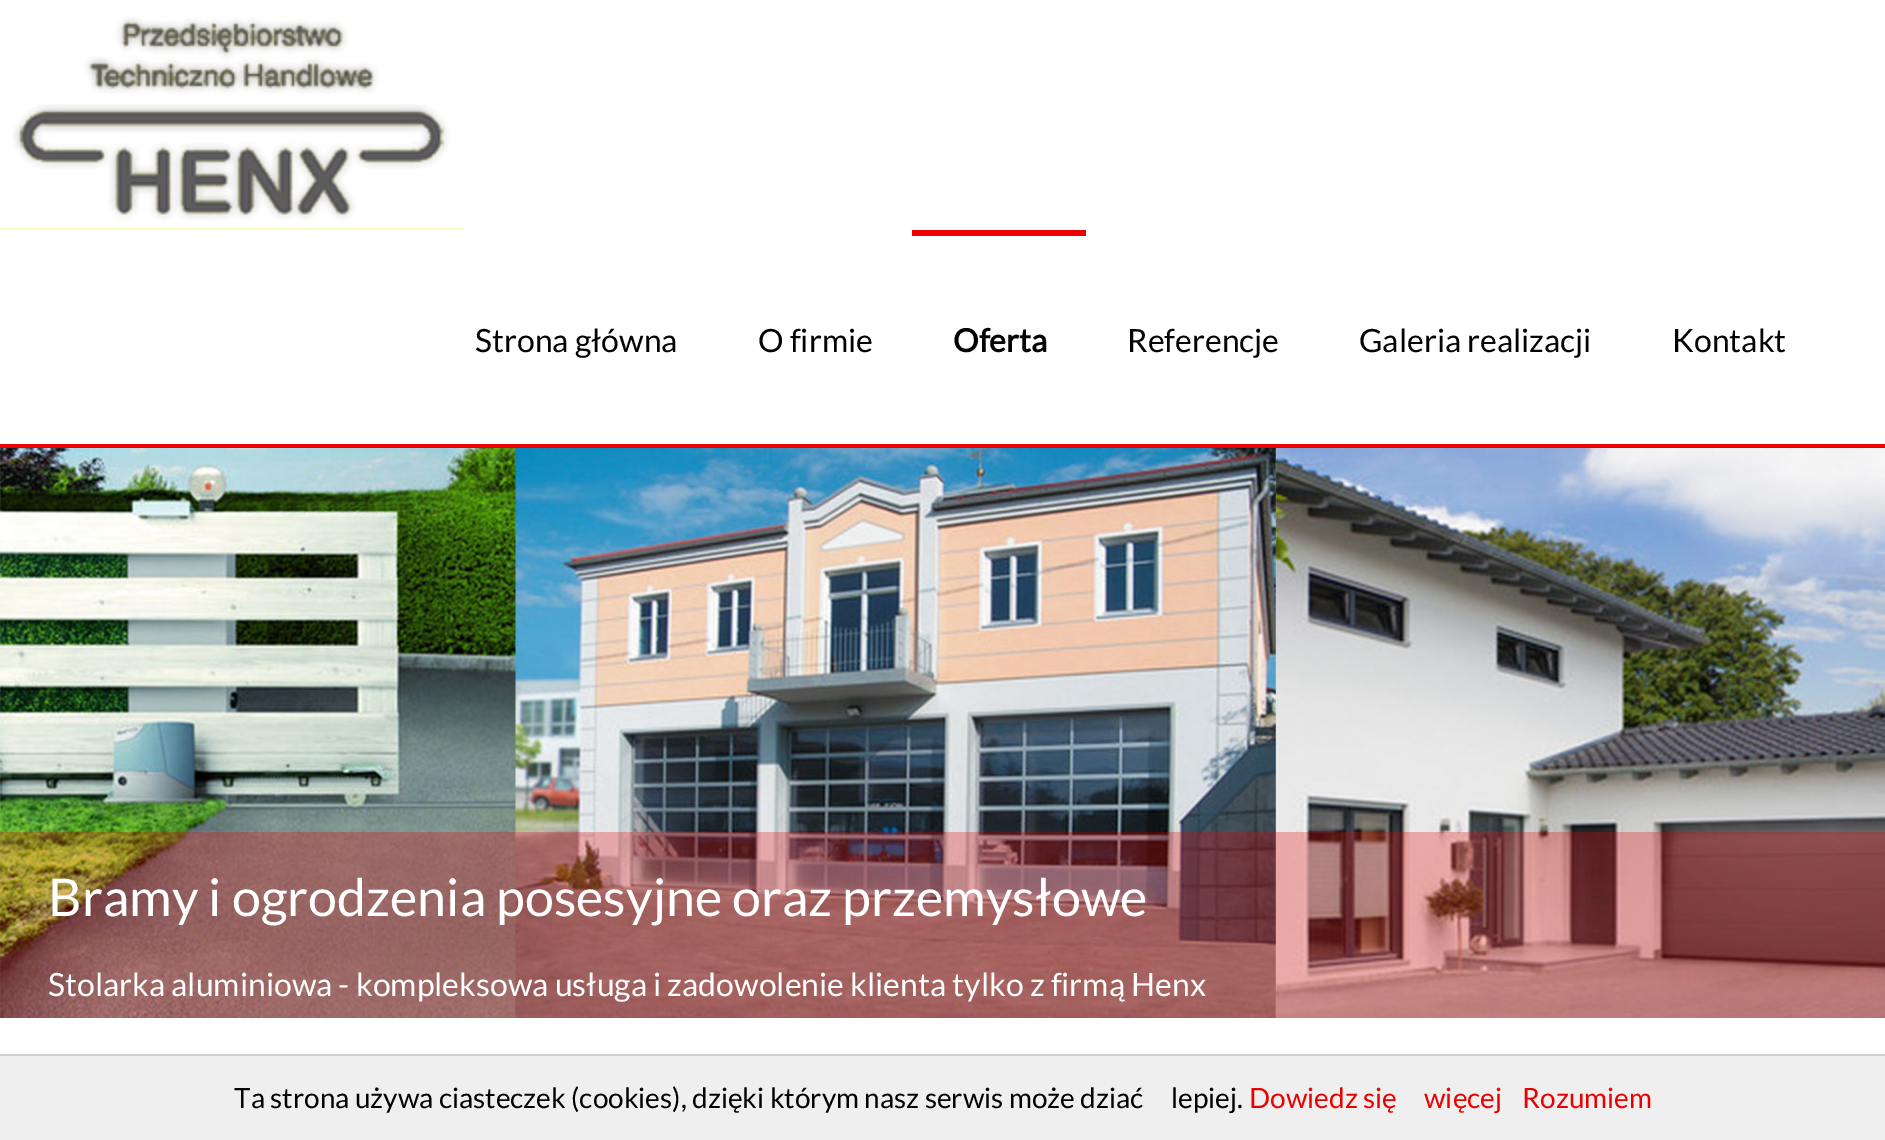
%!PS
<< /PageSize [1885 1140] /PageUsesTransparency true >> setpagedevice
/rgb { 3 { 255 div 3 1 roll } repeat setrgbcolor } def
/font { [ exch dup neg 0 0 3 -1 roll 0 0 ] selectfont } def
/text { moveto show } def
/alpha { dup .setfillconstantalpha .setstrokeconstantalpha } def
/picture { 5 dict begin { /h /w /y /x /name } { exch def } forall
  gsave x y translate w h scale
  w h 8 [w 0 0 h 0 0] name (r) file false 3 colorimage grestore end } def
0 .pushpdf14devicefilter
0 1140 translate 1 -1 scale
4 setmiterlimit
255 255 255 rgb
0 0 1885 1140 rectfill
237 0 0 rgb
0 444 1885 4 rectfill
(img_01.rgb) 0 17 464 213 picture
912 230 174 6 rectfill
(img_02.rgb) 0 448 1885 570 picture
0.28 alpha
234 0 0 rgb
0 832 1885 186 rectfill
1 alpha
239 239 239 rgb
0 1056 1885 84 rectfill
211 208 208 rgb
0 1054 1885 2 rectfill
/Lato-Regular 32 font
2 2 2 rgb
(Strona główna) 475 352 text
(O firmie) 758 352 text
/Lato-Bold 32 font
(Oferta) 953 352 text
/Lato-Regular 32 font
(Referencje) 1127 352 text
(Galeria realizacji) 1359 352 text
(Kontakt) 1672 352 text
/Lato-Regular 52 font
255 255 255 rgb
(Bramy i ogrodzenia posesyjne oraz przemysłowe) 48 916 text
/Lato-Regular 32 font
(Stolarka aluminiowa - kompleksowa usługa i zadowolenie klienta tylko z firmą Henx) 48 996 text
/Lato-Regular 28 font
2 2 2 rgb
(Ta strona używa ciasteczek \(cookies\), dzięki którym nasz serwis może dziać) 234 1108 text
(lepiej.) 1171 1108 text
234 0 0 rgb
(Dowiedz się) 1249 1108 text
(więcej) 1424 1108 text
(Rozumiem) 1522 1108 text
.poppdf14devicefilter showpage
